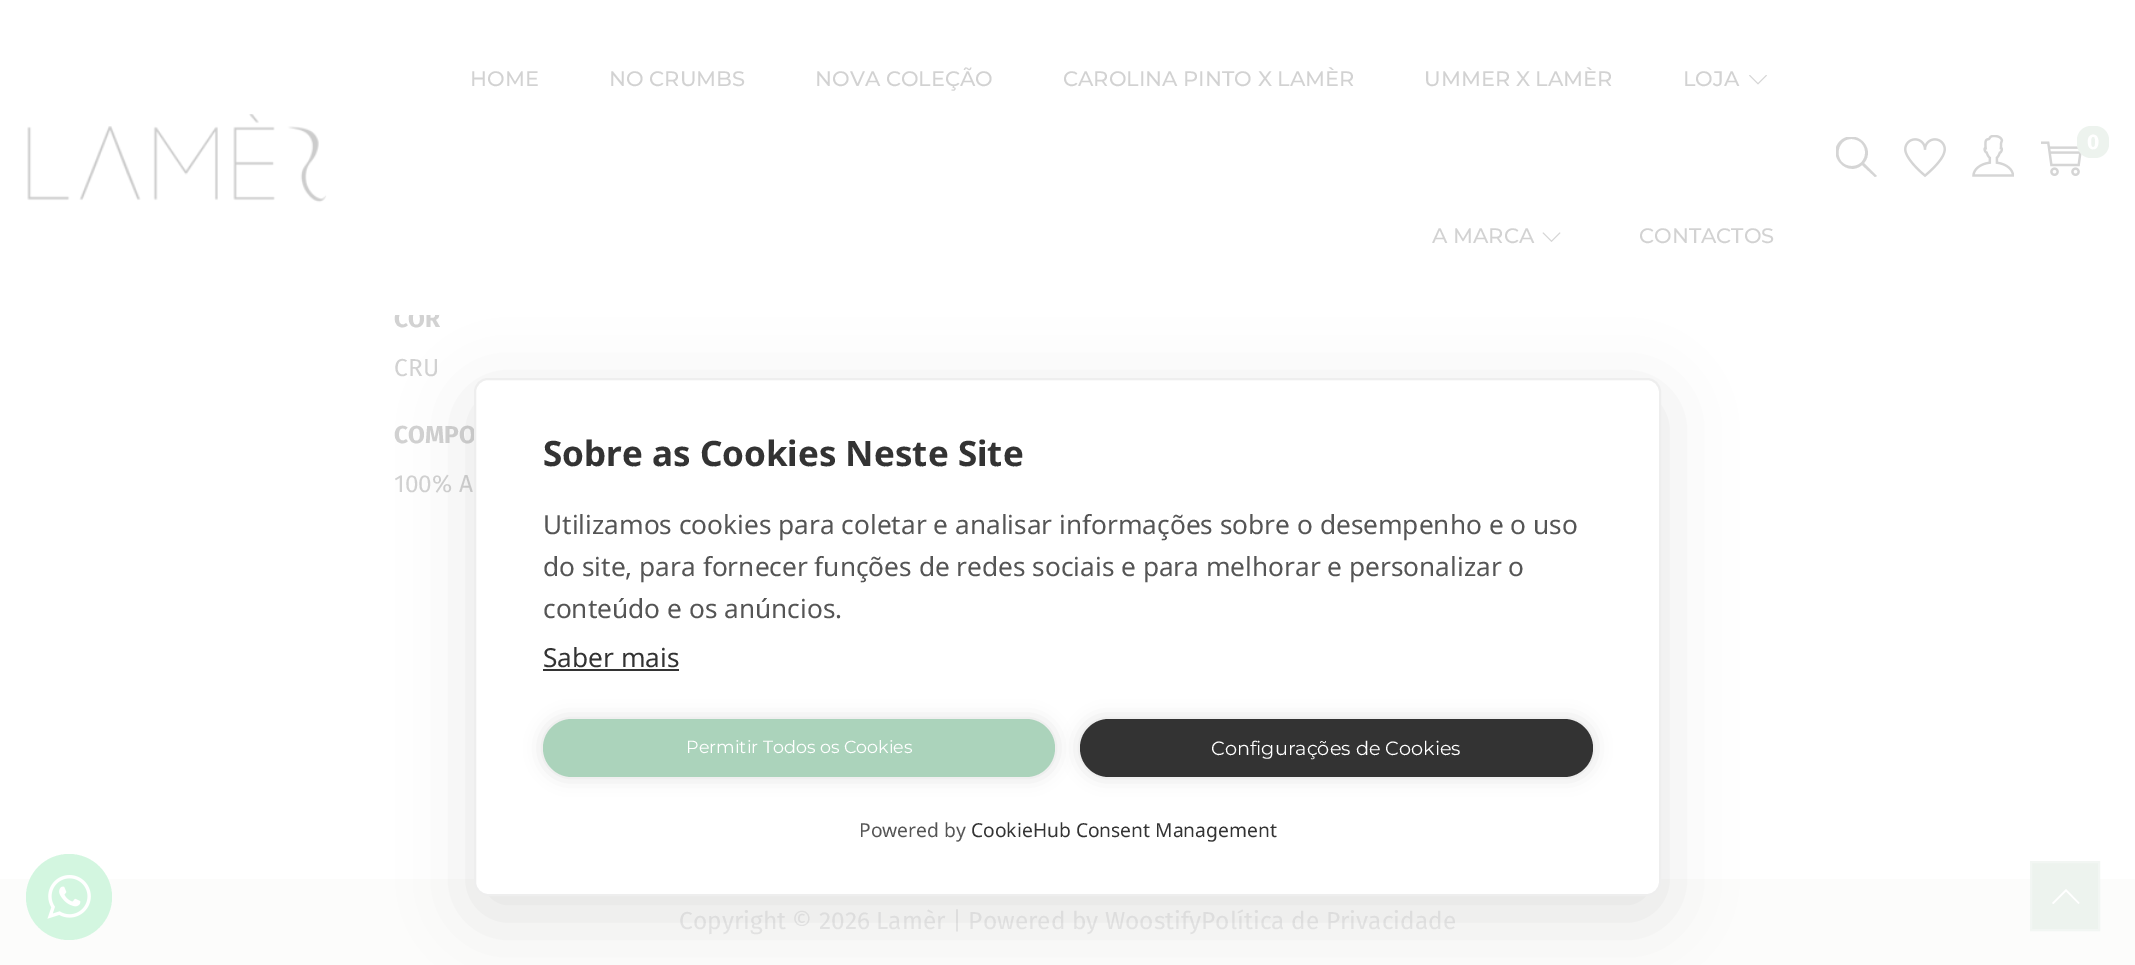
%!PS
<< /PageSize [2135 965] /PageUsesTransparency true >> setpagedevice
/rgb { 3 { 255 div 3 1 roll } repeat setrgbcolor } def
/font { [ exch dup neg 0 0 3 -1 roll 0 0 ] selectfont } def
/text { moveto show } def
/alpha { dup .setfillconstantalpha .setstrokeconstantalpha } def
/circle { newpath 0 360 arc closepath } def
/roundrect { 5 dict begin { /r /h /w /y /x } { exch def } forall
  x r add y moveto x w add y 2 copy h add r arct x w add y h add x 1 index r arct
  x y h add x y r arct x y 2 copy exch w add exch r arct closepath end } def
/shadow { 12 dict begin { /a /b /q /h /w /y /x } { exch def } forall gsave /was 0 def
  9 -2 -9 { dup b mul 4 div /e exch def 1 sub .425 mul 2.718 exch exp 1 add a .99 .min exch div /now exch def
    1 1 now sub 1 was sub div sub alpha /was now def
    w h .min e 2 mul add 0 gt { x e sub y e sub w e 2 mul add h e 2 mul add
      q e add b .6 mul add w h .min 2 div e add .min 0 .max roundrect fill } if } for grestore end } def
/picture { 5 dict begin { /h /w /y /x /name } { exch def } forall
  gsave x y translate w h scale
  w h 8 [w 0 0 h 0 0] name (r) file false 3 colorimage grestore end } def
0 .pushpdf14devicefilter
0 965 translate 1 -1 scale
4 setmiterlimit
255 255 255 rgb
0 0 2135 965 rectfill
(img_01.rgb) 27 114 300 89 picture
213 213 213 rgb
1767 75.5 moveto -9 9 rlineto -9 -9 rlineto 1 -0.5 rlineto 8 8 rlineto 8 -8 rlineto closepath fill
1560.5 233 moveto -9 9 rlineto -9 -9 rlineto 1 -0.5 rlineto 8 8 rlineto 8 -8 rlineto closepath fill
gsave
1836 137 42 42 rectclip
1877 176 moveto -13 -13 rlineto 13 -15 -9 -36 -24 -22 rcurveto -14 14 7 37 22 24 rcurveto 13 12 rlineto closepath 1852 166 moveto -19 0 -17 -28 0 -27 rcurveto 18 1 17 27 0 27 rcurveto closepath fill
grestore
(img_02.rgb) 1904 138 42 40 picture
(img_03.rgb) 1972 135 42 42 picture
(img_04.rgb) 2041 141 41 35 picture
237 243 238 rgb
2077 126 32 32 14 roundrect fill
252 252 251 rgb
0 879 2135 86 rectfill
211 246 224 rgb
69 897 43 circle fill
(img_05.rgb) 47 875 44 44 picture
237 243 238 rgb
2031 862 moveto 68 0 rlineto 0 68 rlineto -68 0 rlineto closepath gsave fill grestore
242 246 243 rgb
2 setlinewidth
stroke
255 255 255 rgb
2079.5 903 moveto -1 1 rlineto -12.5 -12.5 rlineto -12.5 12.5 rlineto -1.5 -1 rlineto 14 -14 rlineto closepath fill
/Montserrat-Medium 21 font
210 210 210 rgb
(HOME) 470 86 text
(NO CRUMBS) 609 86 text
(NOVA COLEÇÃO) 815 86 text
(CAROLINA PINTO X LAMÈR) 1063 86 text
(UMMER X LAMÈR) 1424 86 text
(LOJA) 1683 86 text
(A MARCA) 1432 243 text
(CONTACTOS) 1639 243 text
/FiraSans-Bold 21 font
255 255 255 rgb
(0) 2087 149 text
/FiraSans-Bold 24.5 font
210 210 210 rgb
(COR) 394 327 text
255 255 255 rgb
395 309 44 6 rectfill
/FiraSans-Regular 24.5 font
210 210 210 rgb
(CRU) 394 376 text
/FiraSans-Bold 24.5 font
(COMPO) 394 443 text
/FiraSans-Regular 24.5 font
(100% A) 394 492 text
233 233 233 rgb
(Copyright © 2026 Lamèr | Powered by WoostifyPolítica de Privacidade) 679 929 text
0 0 0 rgb
474 396 1187 518 14 35 0.1 shadow
255 255 255 rgb
475 379 1185 516 13 roundrect gsave fill grestore
238 238 238 rgb
stroke
/NotoSans-Bold 35 font
51 51 51 rgb
(Sobre as Cookies Neste Site) 543 466 text
/NotoSans-Regular 26.25 font
85 85 85 rgb
(Utilizamos cookies para coletar e analisar informações sobre o desempenho e o uso) 543 534 text
(do site, para fornecer funções de redes sociais e para melhorar e personalizar o) 543 576 text
(conteúdo e os anúncios.) 543 618 text
51 51 51 rgb
(Saber mais) 543 667 text
543 669 136 2 rectfill
0 0 0 rgb
543 719 512 58 29 9 0.12 shadow
171 211 187 rgb
543 719 512 58 29 roundrect fill
/Montserrat-Regular 17.5 font
255 255 255 rgb
(Permitir Todos os Cookies) 686 753 text
0 0 0 rgb
1080 719 513 58 29 9 0.12 shadow
51 51 51 rgb
1080 719 513 58 29 roundrect fill
/Montserrat-Regular 19.25 font
255 255 255 rgb
(Configurações de Cookies) 1211 755 text
/NotoSans-Regular 19.25 font
85 85 85 rgb
(Powered by) 859 837 text
51 51 51 rgb
(CookieHub Consent Management) 971 837 text
.poppdf14devicefilter showpage
